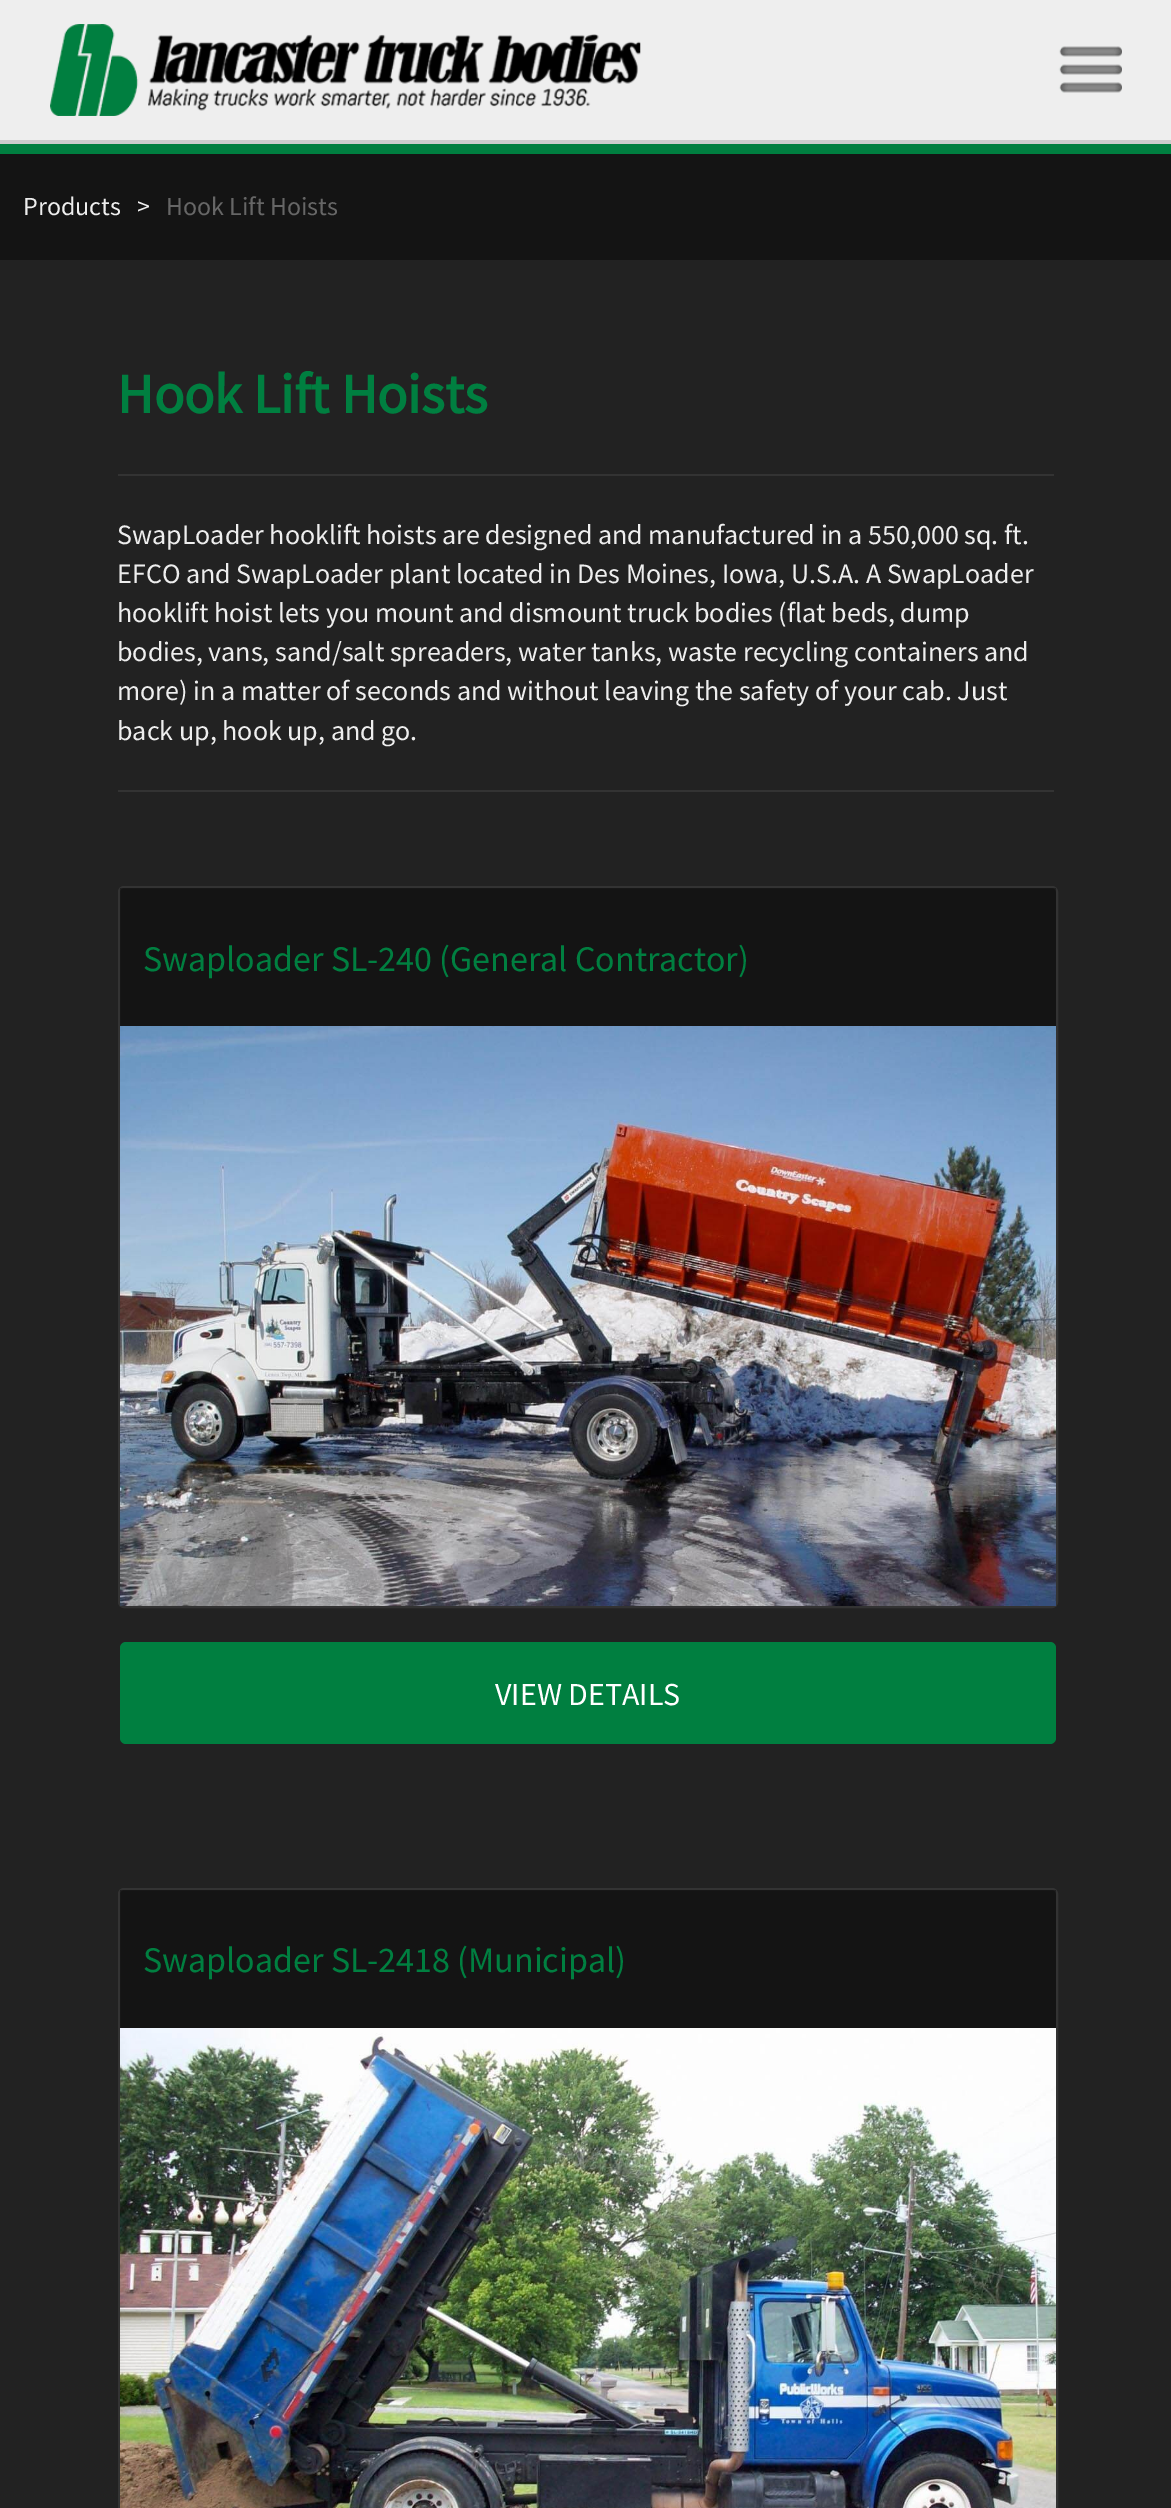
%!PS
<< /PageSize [1171 2508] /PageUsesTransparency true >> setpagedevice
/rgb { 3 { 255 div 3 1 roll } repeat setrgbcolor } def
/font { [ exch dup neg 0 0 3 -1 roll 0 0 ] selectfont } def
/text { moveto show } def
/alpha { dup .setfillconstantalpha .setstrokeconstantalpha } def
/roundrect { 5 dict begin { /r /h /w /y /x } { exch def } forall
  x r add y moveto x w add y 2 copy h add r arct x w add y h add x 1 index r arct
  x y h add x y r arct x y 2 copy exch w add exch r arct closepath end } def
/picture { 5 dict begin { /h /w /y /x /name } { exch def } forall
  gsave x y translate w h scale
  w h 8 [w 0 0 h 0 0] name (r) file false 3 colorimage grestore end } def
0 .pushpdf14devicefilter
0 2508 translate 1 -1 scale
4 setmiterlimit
34 34 34 rgb
0 0 1171 2508 rectfill
0 127 64 rgb
0 144 1171 10 rectfill
238 238 238 rgb
0 0 1171 140 rectfill
204 204 204 rgb
0 140 1171 4 rectfill
(img_01.rgb) 50 24 1072 92 picture
20 20 20 rgb
0 154 1171 106 rectfill
51 51 51 rgb
118 474 936 2 rectfill
118 790 936 2 rectfill
2 setlinewidth
119 887 938 720 5 roundrect stroke
0.4 alpha
0 0 0 rgb
120 888 936 138 rectfill
1 alpha
(img_02.rgb) 120 1026 936 580 picture
0 127 64 rgb
120 1642 936 102 6 roundrect fill
51 51 51 rgb
119 1889 938 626 5 roundrect stroke
0.4 alpha
0 0 0 rgb
120 1890 936 138 rectfill
1 alpha
(img_03.rgb) 120 2028 936 480 picture
/SourceSansPro-Regular 26 font
238 238 238 rgb
(Products) 23 215 text
(>) 137 215 text
102 102 102 rgb
(Hook Lift Hoists) 166 215 text
/SourceSansPro-Bold 56 font
0 127 64 rgb
(Hook Lift Hoists) 117 413 text
/SourceSansPro-Regular 28 font
238 238 238 rgb
(SwapLoader hooklift hoists are designed and manufactured in a 550,000 sq. ft.) 117 544 text
(EFCO and SwapLoader plant located in Des Moines, Iowa, U.S.A. A SwapLoader) 117 583 text
(hooklift hoist lets you mount and dismount truck bodies \(flat beds, dump) 117 622 text
(bodies, vans, sand/salt spreaders, water tanks, waste recycling containers and) 117 661 text
(more\) in a matter of seconds and without leaving the safety of your cab. Just) 117 700 text
(back up, hook up, and go.) 117 740 text
/SourceSansPro-Regular 36 font
0 127 64 rgb
(Swaploader SL-240 \(General Contractor\)) 143 971 text
/SourceSansPro-Regular 32 font
255 255 255 rgb
(VIEW DETAILS) 495 1705 text
/SourceSansPro-Regular 36 font
0 127 64 rgb
(Swaploader SL-2418 \(Municipal\)) 143 1972 text
.poppdf14devicefilter showpage
